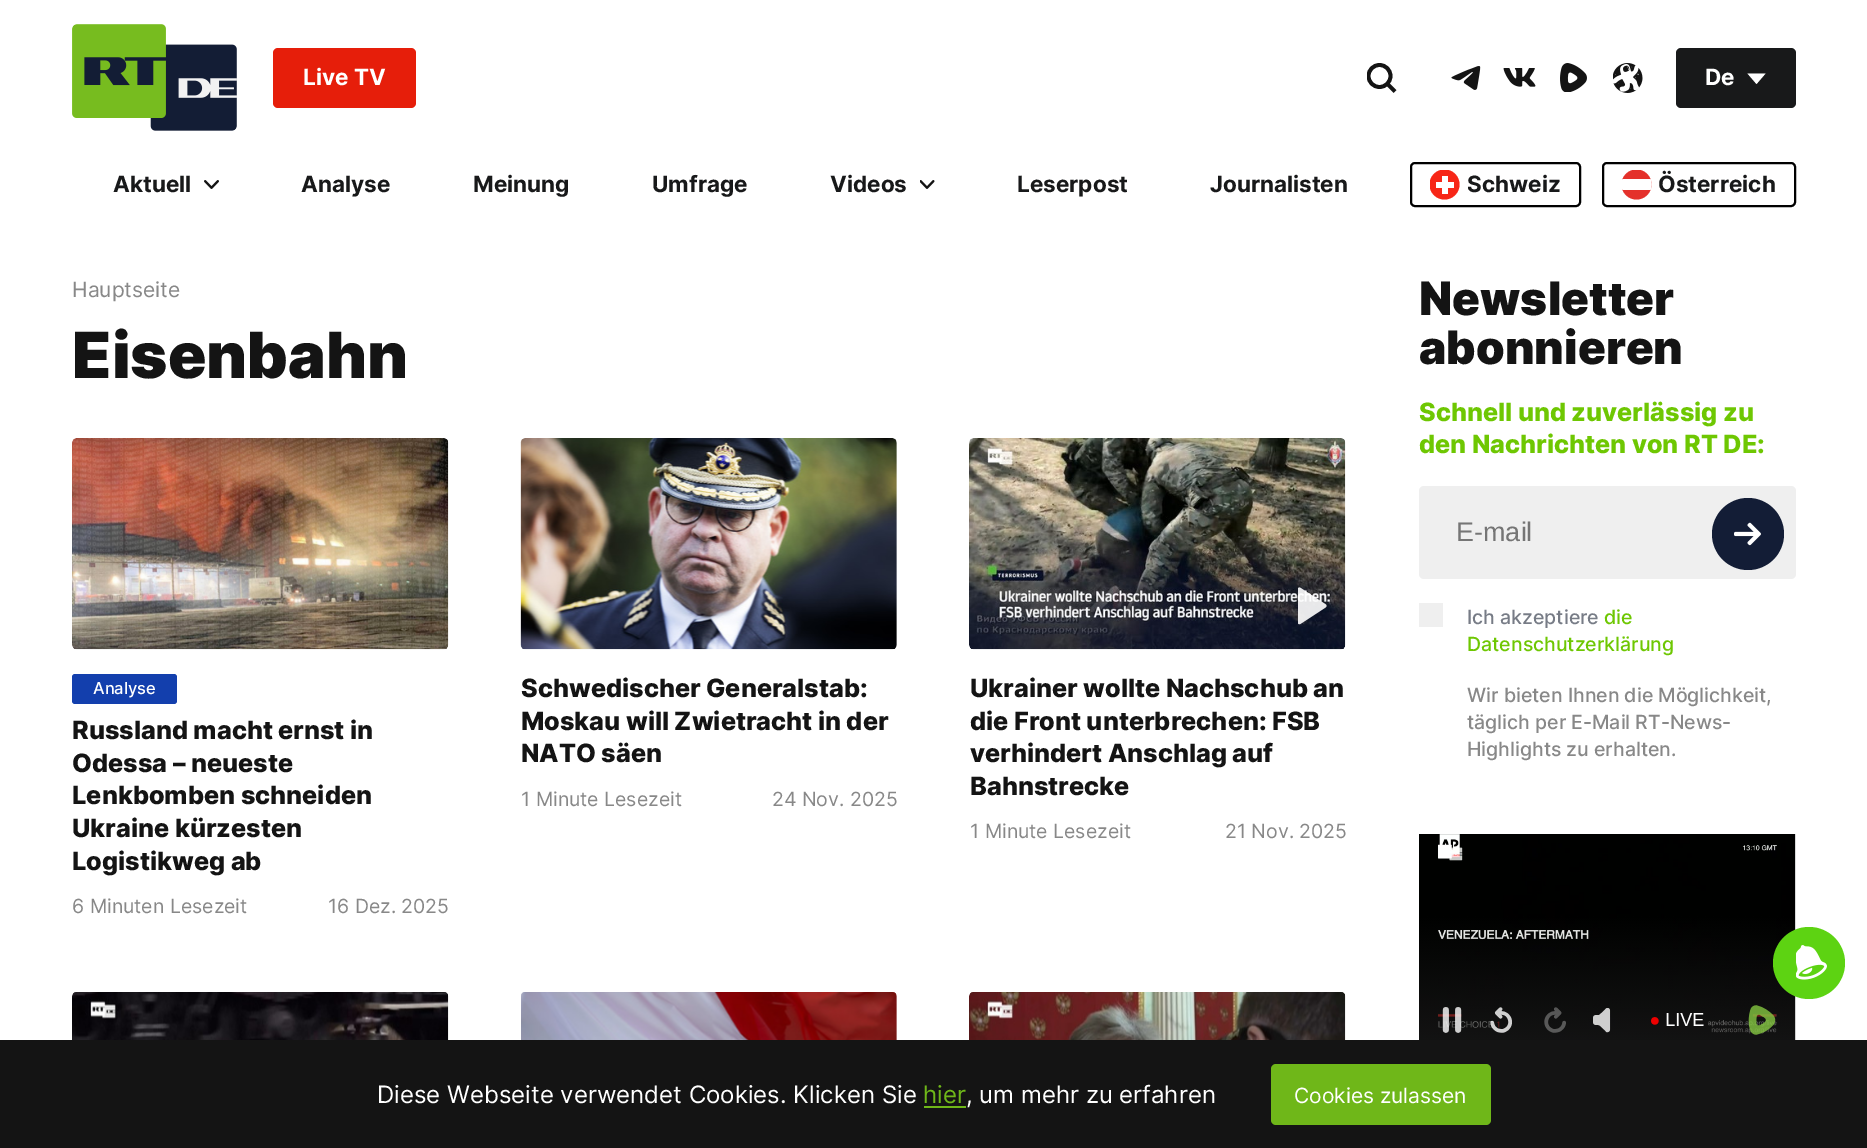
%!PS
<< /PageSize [1867 1148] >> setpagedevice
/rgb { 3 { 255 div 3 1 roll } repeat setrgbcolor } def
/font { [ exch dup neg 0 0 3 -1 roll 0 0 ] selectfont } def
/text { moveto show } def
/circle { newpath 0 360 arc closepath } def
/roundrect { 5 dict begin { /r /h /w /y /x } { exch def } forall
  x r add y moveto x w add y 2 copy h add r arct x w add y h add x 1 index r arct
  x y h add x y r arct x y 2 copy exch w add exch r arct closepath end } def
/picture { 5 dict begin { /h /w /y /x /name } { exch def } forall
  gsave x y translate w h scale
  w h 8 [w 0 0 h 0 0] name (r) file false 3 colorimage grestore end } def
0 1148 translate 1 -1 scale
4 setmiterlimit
255 255 255 rgb
0 0 1867 1148 rectfill
(img_01.rgb) 72 24 165 107 picture
230 30 10 rgb
273 48 143 60 5 roundrect fill
gsave
1367 63 30 30 rectclip
20 20 20 rgb
3.8 setlinewidth
1379.5 76 11 circle stroke
grestore
20 20 20 rgb
3.8 setlinewidth
1387 83.5 moveto 8 8 rlineto stroke
(img_02.rgb) 1451 66 30 24 picture
(img_03.rgb) 1503 68 33 19 picture
(img_04.rgb) 1560 63 27 29 picture
(img_05.rgb) 1613 63 30 30 picture
24 25 26 rgb
1676 48 120 60 5 roundrect fill
255 255 255 rgb
1747.5 73.5 moveto 18 0 rlineto -9 10.5 rlineto closepath fill
(img_06.rgb) 204 180 15 9 picture
(img_07.rgb) 920 180 15 9 picture
0 0 0 rgb
2 setlinewidth
1411 163 169 43 4 roundrect stroke
gsave
1430 170 30 30 rectclip
247 38 23 rgb
1444.5 184.5 15 circle fill
grestore
255 255 255 rgb
1442 176 6 18 rectfill
1436 182 18 6 rectfill
0 0 0 rgb
1603 163 192 43 4 roundrect stroke
gsave
1622 170 30 30 rectclip
228 49 43 rgb
1636.5 184.5 15 circle fill
255 255 255 rgb
1622 180.5 moveto 0.5 -1.5 rlineto 28 0 rlineto 1.5 3.5 1.5 7.5 0 11 rcurveto -28 0 rlineto -1 -3 -0.5 -6.5 -0.5 -9.5 rcurveto closepath fill
grestore
(img_08.rgb) 72 438 377 212 picture
19 63 173 rgb
72 674 105 30 3 roundrect fill
(img_09.rgb) 520 438 377 212 picture
(img_10.rgb) 969 438 377 212 picture
(img_11.rgb) 1298 587 29 38 picture
(img_12.rgb) 72 992 377 48 picture
(img_13.rgb) 521 992 376 48 picture
(img_14.rgb) 969 992 377 48 picture
239 239 239 rgb
1419 486 377 93 5 roundrect fill
19 29 54 rgb
1748 534 36 circle fill
(img_15.rgb) 1734 522 27 24 picture
239 239 239 rgb
1419 603 24 24 rectfill
(img_16.rgb) 1419 834 377 206 picture
93 211 18 rgb
1809 963 36 circle fill
(img_17.rgb) 1796 945 31 35 picture
20 20 20 rgb
0 1040 1867 108 rectfill
111 183 25 rgb
924 1106 42 2 rectfill
1271 1064 220 61 5 roundrect fill
/Inter-Bold 22.5 font
255 255 255 rgb
(Live TV) 303 85 text
(De) 1705 85 text
24 25 26 rgb
(Aktuell) 113 192 text
(Analyse) 301 192 text
(Meinung) 473 192 text
(Umfrage) 652 192 text
(Videos) 830 192 text
(Leserpost) 1017 192 text
(Journalisten) 1210 192 text
(Schweiz) 1467 192 text
(Österreich) 1658 192 text
/Inter-Regular 21 font
136 136 136 rgb
(Hauptseite) 72 297 text
/Inter-Black 63.5 font
20 20 20 rgb
(Eisenbahn) 72 378 text
/Inter-Medium 16.5 font
255 255 255 rgb
(Analyse) 93 694 text
/Inter-ExtraBold 25.25 font
20 20 20 rgb
(Russland macht ernst in) 72 739 text
(Odessa – neueste) 72 772 text
(Lenkbomben schneiden) 72 804 text
(Ukraine kürzesten) 72 837 text
(Logistikweg ab) 72 870 text
/Inter-Regular 19.5 font
136 136 136 rgb
(6 Minuten Lesezeit) 72 913 text
(16 Dez. 2025) 328 913 text
/Inter-ExtraBold 25.25 font
20 20 20 rgb
(Schwedischer Generalstab:) 521 697 text
(Moskau will Zwietracht in der) 521 730 text
(NATO säen) 521 762 text
/Inter-Regular 19.5 font
136 136 136 rgb
(1 Minute Lesezeit) 521 806 text
(24 Nov. 2025) 772 806 text
/Inter-ExtraBold 25.25 font
20 20 20 rgb
(Ukrainer wollte Nachschub an) 970 697 text
(die Front unterbrechen: FSB) 970 730 text
(verhindert Anschlag auf) 970 762 text
(Bahnstrecke) 970 795 text
/Inter-Regular 19.5 font
136 136 136 rgb
(1 Minute Lesezeit) 970 838 text
(21 Nov. 2025) 1225 838 text
/Inter-Black 46 font
20 20 20 rgb
(Newsletter) 1419 315 text
(abonnieren) 1419 364 text
/Inter-ExtraBold 25.25 font
110 199 2 rgb
(Schnell und zuverlässig zu) 1419 421 text
(den Nachrichten von RT DE:) 1419 453 text
/LiberationSans-Regular 27 font
117 117 117 rgb
(E-mail) 1456 541 text
/Inter-Medium 19.5 font
119 124 134 rgb
(Ich akzeptiere) 1467 624 text
110 199 2 rgb
(die) 1604 624 text
(Datenschutzerklärung) 1467 651 text
136 136 136 rgb
(Wir bieten Ihnen die Möglichkeit,) 1467 702 text
(täglich per E-Mail RT-News-) 1467 729 text
(Highlights zu erhalten.) 1467 756 text
/Inter-Regular 24 font
255 255 255 rgb
(Diese Webseite verwendet Cookies. Klicken Sie) 377 1103 text
111 183 25 rgb
(hier) 923 1103 text
255 255 255 rgb
(, um mehr zu erfahren) 966 1103 text
/Inter-Regular 21 font
(Cookies zulassen) 1294 1103 text
showpage
